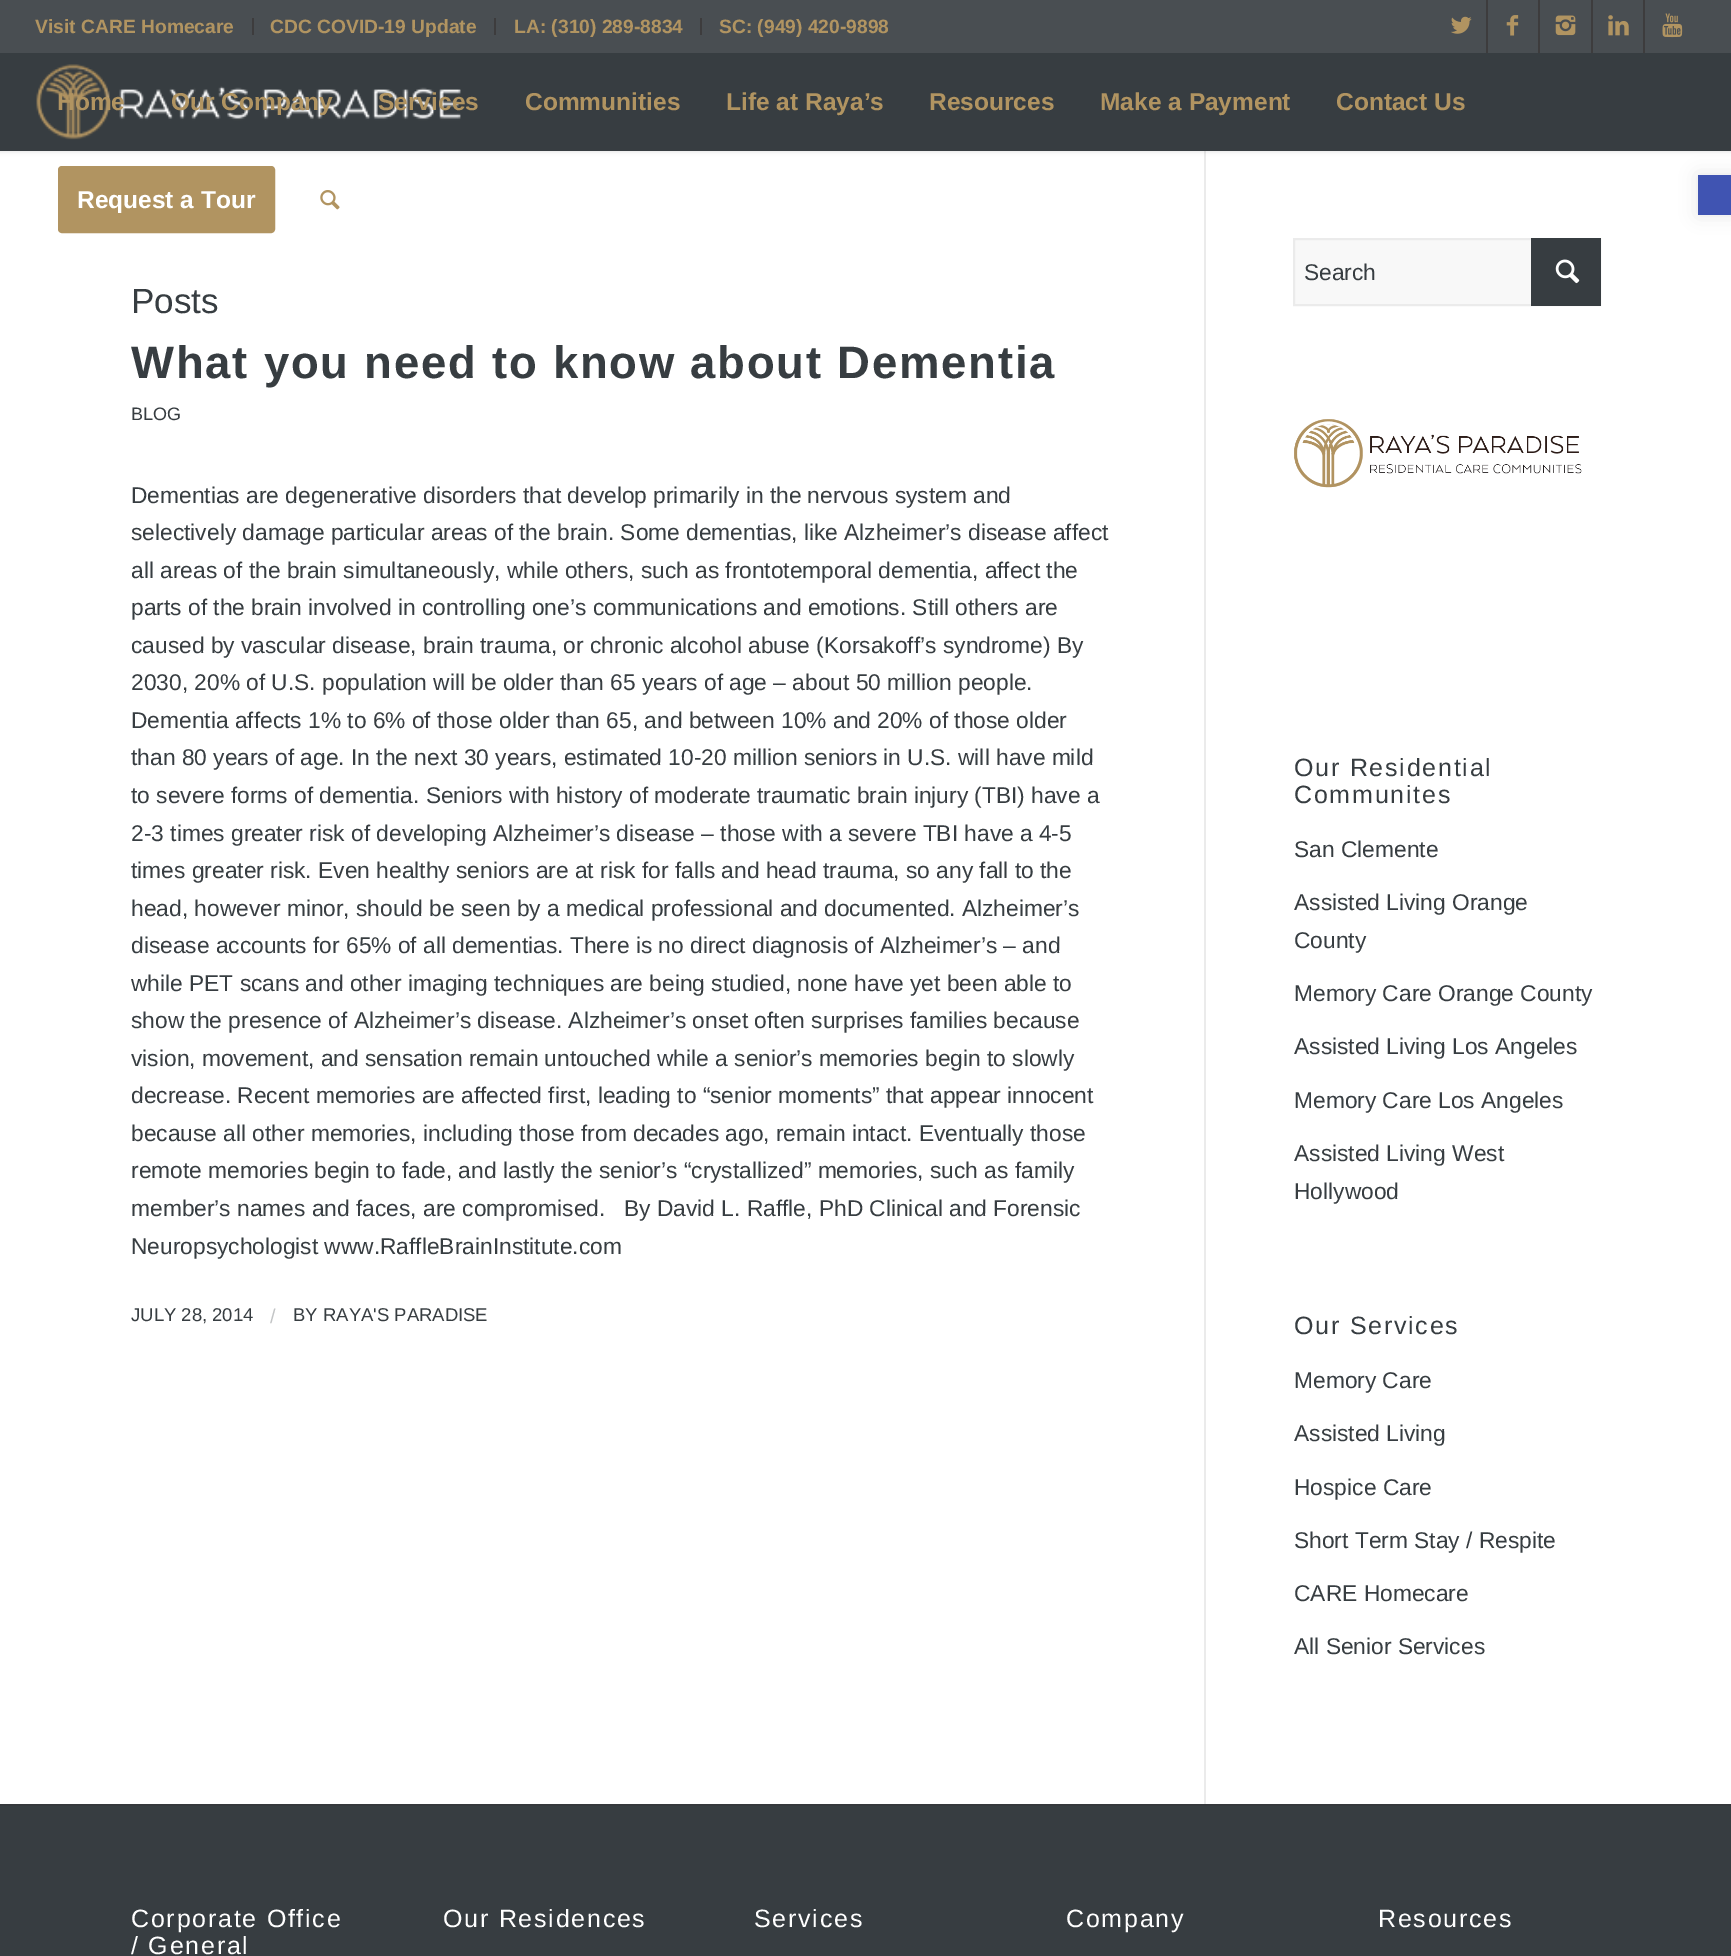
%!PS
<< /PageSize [1731 1956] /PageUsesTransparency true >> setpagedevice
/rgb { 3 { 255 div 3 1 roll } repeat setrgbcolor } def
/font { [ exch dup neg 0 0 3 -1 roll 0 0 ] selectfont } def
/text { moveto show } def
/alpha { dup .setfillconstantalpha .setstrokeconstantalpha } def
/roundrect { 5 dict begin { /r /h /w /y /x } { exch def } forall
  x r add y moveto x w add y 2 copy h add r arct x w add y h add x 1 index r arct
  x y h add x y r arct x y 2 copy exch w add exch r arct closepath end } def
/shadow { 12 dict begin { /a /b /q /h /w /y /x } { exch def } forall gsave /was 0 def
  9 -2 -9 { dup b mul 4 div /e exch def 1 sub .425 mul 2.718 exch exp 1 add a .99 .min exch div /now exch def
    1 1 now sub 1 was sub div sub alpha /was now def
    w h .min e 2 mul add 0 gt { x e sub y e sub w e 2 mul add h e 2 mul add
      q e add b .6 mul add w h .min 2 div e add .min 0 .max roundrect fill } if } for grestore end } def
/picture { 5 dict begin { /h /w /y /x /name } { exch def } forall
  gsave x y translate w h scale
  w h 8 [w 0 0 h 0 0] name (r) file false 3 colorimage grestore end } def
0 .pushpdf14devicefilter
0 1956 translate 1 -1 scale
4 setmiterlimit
55 61 65 rgb
0 0 1731 1956 rectfill
255 255 255 rgb
0 151 1731 1653 rectfill
235 235 235 rgb
1204 151 2 1653 rectfill
0 0 0 rgb
-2 -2 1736 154 0 2 0.1 shadow
73 78 82 rgb
0 0 1731 53 rectfill
61 60 61 rgb
252 18 2 17 rectfill
494 18 2 17 rectfill
700 18 2 17 rectfill
1486 0 2 53 rectfill
(img_01.rgb) 1451 16 21 18 picture
1538 0 2 53 rectfill
(img_02.rgb) 1506 15 13 21 picture
1591 0 2 53 rectfill
(img_03.rgb) 1555 15 21 21 picture
1643 0 2 53 rectfill
(img_04.rgb) 1608 15 21 21 picture
(img_05.rgb) 1662 13 21 25 picture
55 61 65 rgb
0 53 1731 98 rectfill
(img_06.rgb) 36 64 425 76 picture
177 148 97 rgb
60 168 213 63 2 roundrect gsave fill grestore
4 setlinewidth
stroke
(img_07.rgb) 320 190 20 20 picture
248 248 248 rgb
1295 240 236 64 rectfill
235 235 235 rgb
2 setlinewidth
1294 239 306 66 rectstroke
55 61 65 rgb
1531 238 70 68 rectfill
(img_08.rgb) 1555 259 25 25 picture
(img_09.rgb) 1294 419 288 69 picture
53 56 60 rgb
0 1804 1731 2 rectfill
0 0 0 rgb
1698 175 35 40 0 9 0.1 shadow
64 84 178 rgb
1698 175 33 40 rectfill
/LiberationSans-Bold 19.25 font
177 148 97 rgb
(Visit CARE Homecare) 35 33 text
(CDC COVID-19 Update) 270 33 text
(LA: \(310\) 289-8834) 514 33 text
(SC: \(949\) 420-9898) 719 33 text
/LiberationSans-Bold 24.5 font
(Home) 57 110 text
(Our Company) 171 110 text
(Services) 378 110 text
(Communities) 525 110 text
(Life at Raya’s) 726 110 text
(Resources) 929 110 text
(Make a Payment) 1100 110 text
(Contact Us) 1336 110 text
255 255 255 rgb
(Request a Tour) 77 208 text
/LiberationSans-Regular 35 font
55 61 65 rgb
(Posts) 131 313 text
/LiberationSans-Bold 45.5 font
131 378 moveto 1.75 0 (What you need to know about Dementia) ashow
/LiberationSans-Regular 18 font
(BLOG) 131 420 text
/LiberationSans-Regular 22.75 font
(Dementias are degenerative disorders that develop primarily in the nervous system and) 131 503 text
(selectively damage particular areas of the brain. Some dementias, like Alzheimer’s disease affect) 131 540 text
(all areas of the brain simultaneously, while others, such as frontotemporal dementia, affect the) 131 578 text
(parts of the brain involved in controlling one’s communications and emotions. Still others are) 131 615 text
(caused by vascular disease, brain trauma, or chronic alcohol abuse \(Korsakoff’s syndrome\) By) 131 653 text
(2030, 20% of U.S. population will be older than 65 years of age – about 50 million people.) 131 690 text
(Dementia affects 1% to 6% of those older than 65, and between 10% and 20% of those older) 131 728 text
(than 80 years of age. In the next 30 years, estimated 10-20 million seniors in U.S. will have mild) 131 765 text
(to severe forms of dementia. Seniors with history of moderate traumatic brain injury \(TBI\) have a) 131 803 text
(2-3 times greater risk of developing Alzheimer’s disease – those with a severe TBI have a 4-5) 131 841 text
(times greater risk. Even healthy seniors are at risk for falls and head trauma, so any fall to the) 131 878 text
(head, however minor, should be seen by a medical professional and documented. Alzheimer’s) 131 916 text
(disease accounts for 65% of all dementias. There is no direct diagnosis of Alzheimer’s – and) 131 953 text
(while PET scans and other imaging techniques are being studied, none have yet been able to) 131 991 text
(show the presence of Alzheimer’s disease. Alzheimer’s onset often surprises families because) 131 1028 text
(vision, movement, and sensation remain untouched while a senior’s memories begin to slowly) 131 1066 text
(decrease. Recent memories are affected first, leading to “senior moments” that appear innocent) 131 1103 text
(because all other memories, including those from decades ago, remain intact. Eventually those) 131 1141 text
(remote memories begin to fade, and lastly the senior’s “crystallized” memories, such as family) 131 1178 text
(member’s names and faces, are compromised.) 131 1216 text
(By David L. Raffle, PhD Clinical and Forensic) 624 1216 text
(Neuropsychologist www.RaffleBrainInstitute.com) 131 1254 text
/LiberationSans-Regular 18.5 font
(JULY 28, 2014) 131 1321 text
/LiberationSans-Regular 20 font
195 197 198 rgb
(/) 270 1323 text
/LiberationSans-Regular 18.5 font
55 61 65 rgb
(BY RAYA'S PARADISE) 293 1321 text
/LiberationSans-Regular 22.75 font
(Search) 1304 280 text
/LiberationSans-Regular 25 font
1294 776 moveto 1.75 0 (Our Residential) ashow
1294 803 moveto 1.75 0 (Communites) ashow
/LiberationSans-Regular 22.75 font
(San Clemente) 1294 857 text
(Assisted Living Orange) 1294 910 text
(County) 1294 948 text
(Memory Care Orange County) 1294 1001 text
(Assisted Living Los Angeles) 1294 1054 text
(Memory Care Los Angeles) 1294 1108 text
(Assisted Living West) 1294 1161 text
(Hollywood) 1294 1199 text
/LiberationSans-Regular 25 font
1294 1334 moveto 1.75 0 (Our Services) ashow
/LiberationSans-Regular 22.75 font
(Memory Care) 1294 1388 text
(Assisted Living) 1294 1441 text
(Hospice Care) 1294 1495 text
(Short Term Stay / Respite) 1294 1548 text
(CARE Homecare) 1294 1601 text
(All Senior Services) 1294 1654 text
/LiberationSans-Regular 25 font
255 255 255 rgb
131 1927 moveto 1.75 0 (Corporate Office) ashow
131 1954 moveto 1.75 0 (/ General) ashow
443 1927 moveto 1.75 0 (Our Residences) ashow
754 1927 moveto 1.75 0 (Services) ashow
1066 1927 moveto 1.75 0 (Company) ashow
1378 1927 moveto 1.75 0 (Resources) ashow
.poppdf14devicefilter showpage
